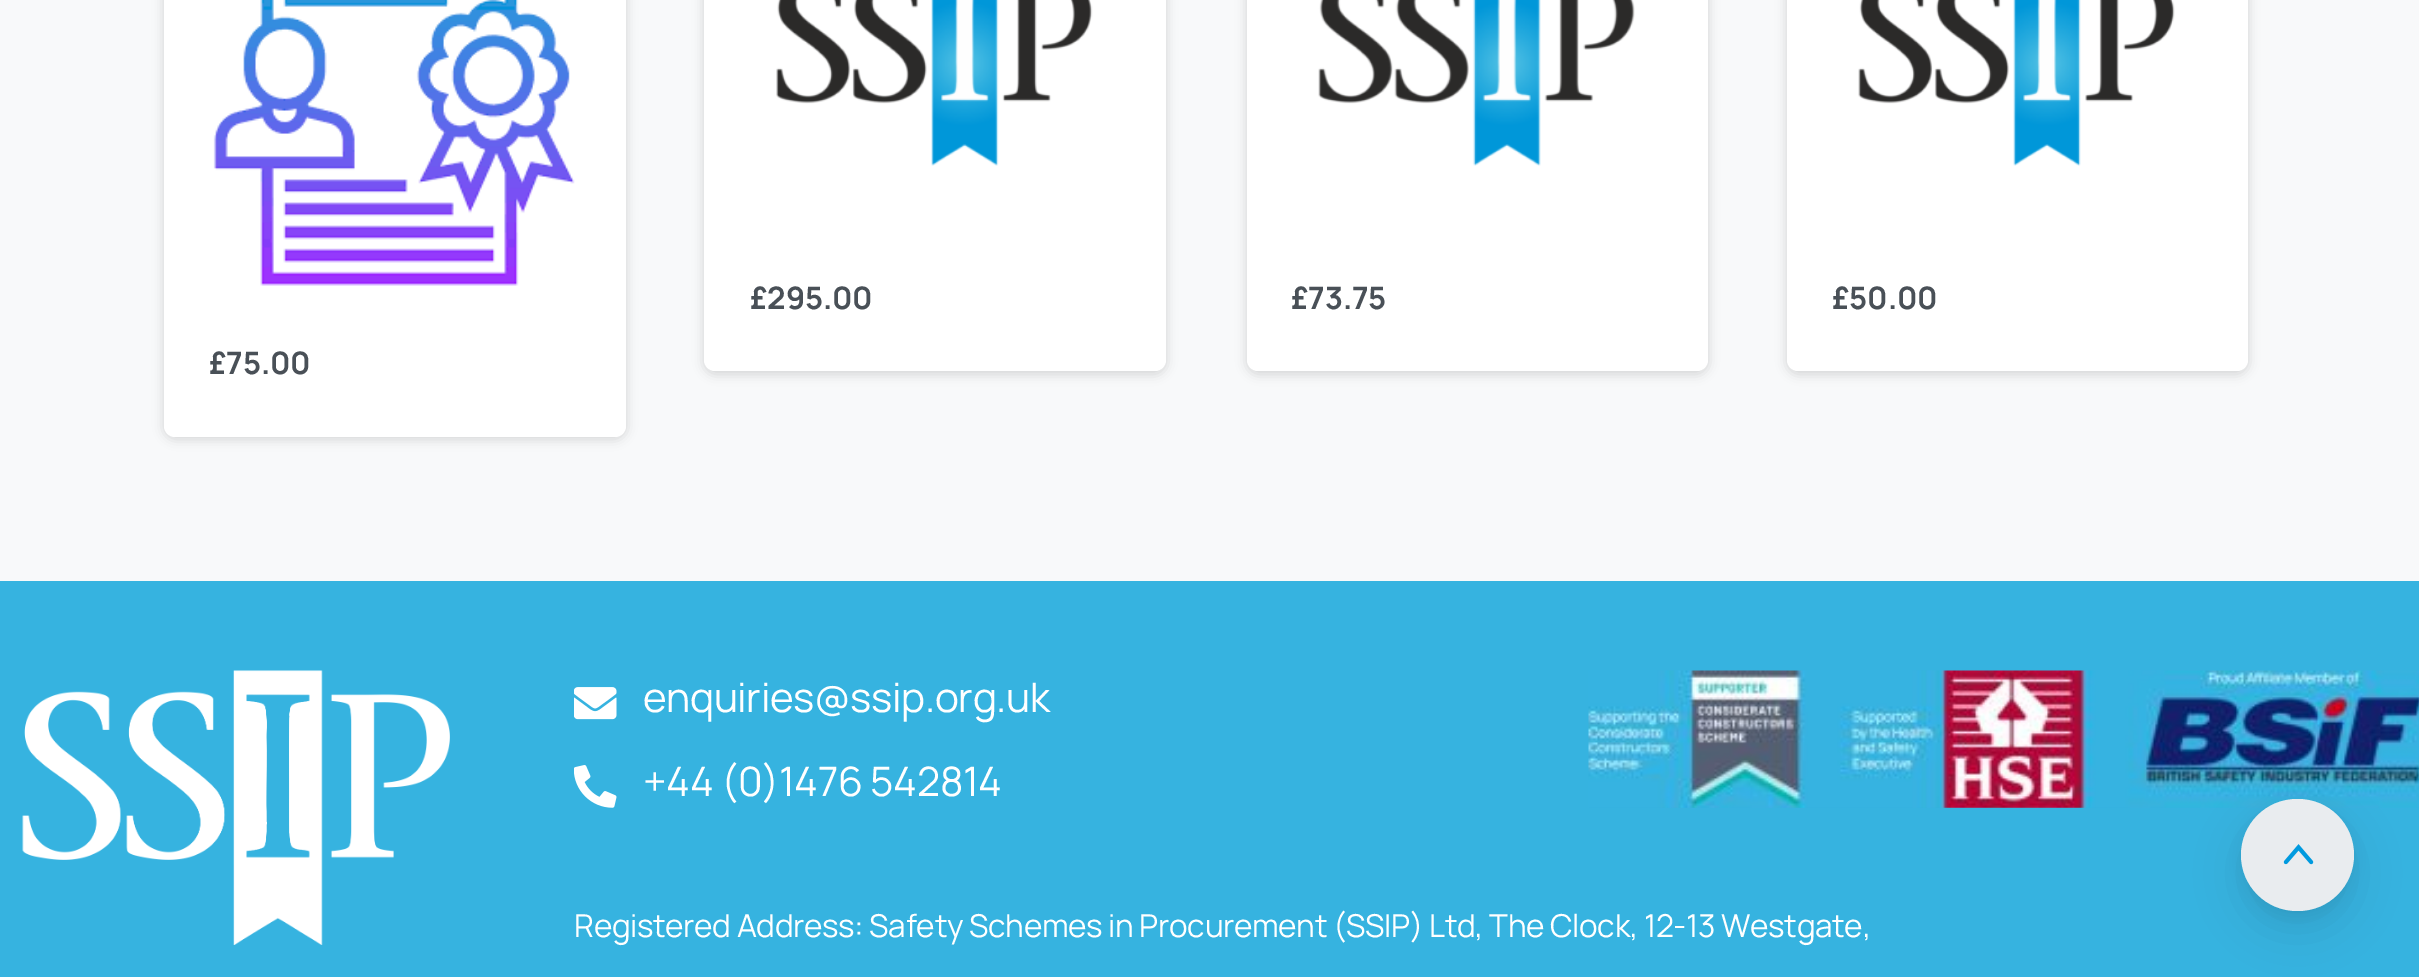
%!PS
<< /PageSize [2419 977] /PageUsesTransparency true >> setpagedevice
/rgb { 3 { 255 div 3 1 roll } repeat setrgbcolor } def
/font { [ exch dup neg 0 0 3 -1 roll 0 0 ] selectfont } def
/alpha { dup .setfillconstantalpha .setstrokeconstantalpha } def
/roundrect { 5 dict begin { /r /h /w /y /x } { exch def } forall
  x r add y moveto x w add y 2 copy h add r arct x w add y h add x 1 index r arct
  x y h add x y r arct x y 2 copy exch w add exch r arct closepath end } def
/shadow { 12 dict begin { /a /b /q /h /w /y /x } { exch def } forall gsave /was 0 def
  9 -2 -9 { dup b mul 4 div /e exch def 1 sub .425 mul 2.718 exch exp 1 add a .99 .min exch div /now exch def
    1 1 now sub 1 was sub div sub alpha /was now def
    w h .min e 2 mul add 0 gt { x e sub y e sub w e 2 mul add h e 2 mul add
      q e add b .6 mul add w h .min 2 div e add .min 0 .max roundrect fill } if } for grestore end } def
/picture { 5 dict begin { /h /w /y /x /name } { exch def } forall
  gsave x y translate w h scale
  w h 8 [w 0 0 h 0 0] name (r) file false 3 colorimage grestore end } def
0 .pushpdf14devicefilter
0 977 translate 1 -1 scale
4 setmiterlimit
54 179 224 rgb
0 0 2419 977 rectfill
248 249 250 rgb
0 0 2419 581 rectfill
0 0 0 rgb
704 -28 462 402 11 5.5 0.15 shadow
255 255 255 rgb
704 -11 462 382 11 roundrect fill
(img_01.rgb) 776 0 317 166 picture
0 0 0 rgb
1247 -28 461 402 11 5.5 0.15 shadow
255 255 255 rgb
1247 -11 461 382 11 roundrect fill
(img_02.rgb) 1318 0 317 166 picture
0 0 0 rgb
1787 -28 461 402 11 5.5 0.15 shadow
255 255 255 rgb
1787 -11 461 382 11 roundrect fill
(img_03.rgb) 1858 0 317 166 picture
0 0 0 rgb
164 -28 462 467 11 5.5 0.15 shadow
255 255 255 rgb
164 -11 462 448 11 roundrect fill
(img_04.rgb) 213 0 362 286 picture
(img_05.rgb) 22 670 428 275 picture
(img_06.rgb) 574 687 43 33 picture
(img_07.rgb) 574 765 43 43 picture
(img_08.rgb) 1588 670 831 138 picture
0 0 0 rgb
2241 817 113 112 56 21.5 0.1 shadow
2241 803 113 113 56.5 7 0.05 shadow
233 236 239 rgb
2241 799 113 112 56 roundrect fill
(img_09.rgb) 2283 844 31 21 picture
/Manrope-Bold 31 font
73 80 87 rgb
750 309 moveto -0.25 0 (£295.00) ashow
1291 309 moveto -0.25 0 (£73.75) ashow
1832 309 moveto -0.25 0 (£50.00) ashow
209 374 moveto -0.25 0 (£75.00) ashow
/Manrope-Regular 40.5 font
255 255 255 rgb
643 712 moveto -0.35 0 (enquiries@ssip.org.uk) ashow
643 796 moveto -0.35 0 (+44 \(0\)1476 542814) ashow
/Manrope-Regular 31.5 font
574 937 moveto -0.35 0 (Registered Address: Safety Schemes in Procurement \(SSIP\) Ltd, The Clock, 12-13 Westgate,) ashow
.poppdf14devicefilter showpage
